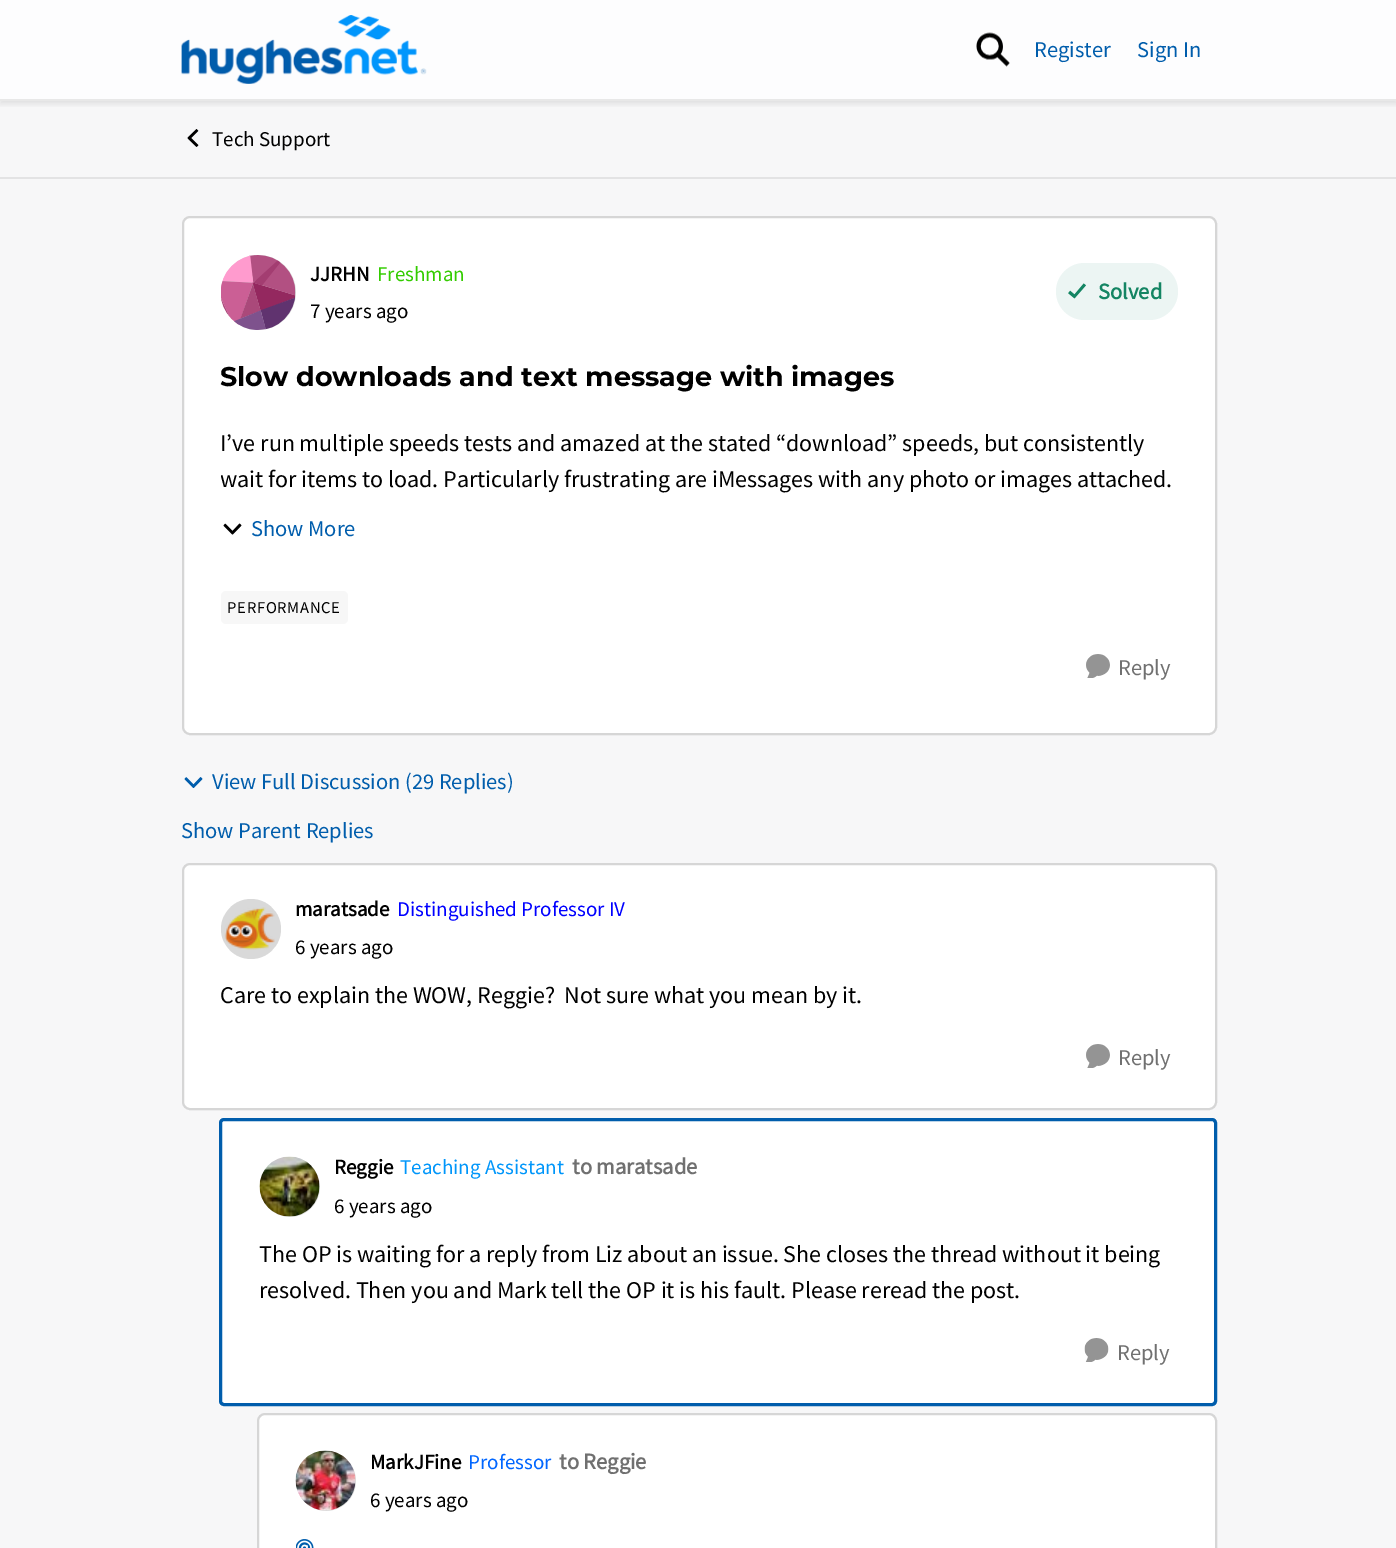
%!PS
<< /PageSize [1396 1548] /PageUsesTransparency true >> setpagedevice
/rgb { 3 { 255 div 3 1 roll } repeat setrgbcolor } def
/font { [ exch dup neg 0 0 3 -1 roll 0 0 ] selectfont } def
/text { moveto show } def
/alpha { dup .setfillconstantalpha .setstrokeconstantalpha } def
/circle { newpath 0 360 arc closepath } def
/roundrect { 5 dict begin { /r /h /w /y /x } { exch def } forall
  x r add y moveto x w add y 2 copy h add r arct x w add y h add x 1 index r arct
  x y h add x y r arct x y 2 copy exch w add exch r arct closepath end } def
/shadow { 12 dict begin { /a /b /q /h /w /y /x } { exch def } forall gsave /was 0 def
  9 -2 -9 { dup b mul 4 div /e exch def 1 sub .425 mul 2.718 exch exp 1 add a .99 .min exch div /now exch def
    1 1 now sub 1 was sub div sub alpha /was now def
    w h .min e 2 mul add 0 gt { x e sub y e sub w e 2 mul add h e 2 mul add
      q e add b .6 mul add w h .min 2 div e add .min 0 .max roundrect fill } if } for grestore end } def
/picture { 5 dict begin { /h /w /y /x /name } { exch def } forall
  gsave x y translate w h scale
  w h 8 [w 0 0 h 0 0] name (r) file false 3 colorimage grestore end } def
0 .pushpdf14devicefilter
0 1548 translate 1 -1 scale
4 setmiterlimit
247 247 248 rgb
0 0 1396 1548 rectfill
gsave
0 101 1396 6 rectclip
51 51 51 rgb
0 3 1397 101 0 3 0.12 shadow
grestore
0.8 alpha
255 255 255 rgb
0 0 1396 99 rectfill
1 alpha
232 232 232 rgb
0 99 1396 2 rectfill
(img_01.rgb) 181 15 246 69 picture
(img_02.rgb) 976 32 34 35 picture
227 227 228 rgb
0 177 1396 2 rectfill
(img_03.rgb) 187 129 12 18 picture
255 255 255 rgb
182 216 1035 519 8 roundrect fill
0.16 alpha
0 0 0 rgb
2 setlinewidth
183 217 1033 517 7 roundrect stroke
1 alpha
217 217 217 rgb
258.5 292.5 37.5 circle fill
(img_04.rgb) 221 255 75 75 picture
236 245 243 rgb
1056 263 122 57 28.5 roundrect fill
(img_05.rgb) 1068 283 18 16 picture
(img_06.rgb) 223 523 19 12 picture
247 247 247 rgb
221 591 127 33 5 roundrect fill
(img_07.rgb) 1086 654 24 24 picture
(img_08.rgb) 184 777 19 11 picture
255 255 255 rgb
182 863 1035 247 8 roundrect fill
0.16 alpha
0 0 0 rgb
183 864 1033 245 7 roundrect stroke
1 alpha
217 217 217 rgb
251 929 30 circle fill
(img_09.rgb) 224 907 51 43 picture
(img_10.rgb) 1086 1044 24 24 picture
255 255 255 rgb
220.5 1119.5 995 285 3.5 roundrect gsave fill grestore
0 93 172 rgb
3 setlinewidth
stroke
217 217 217 rgb
290 1187 30 circle fill
(img_11.rgb) 259 1156 61 61 picture
(img_12.rgb) 1084 1338 25 24 picture
255 255 255 rgb
257 1413 960 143 8 roundrect fill
0.16 alpha
0 0 0 rgb
2 setlinewidth
258 1414 958 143 7 roundrect stroke
1 alpha
217 217 217 rgb
326 1481 30 circle fill
(img_13.rgb) 295 1450 61 61 picture
(img_14.rgb) 296 1539 18 9 picture
/SourceSansPro-Regular 22.5 font
0 93 172 rgb
(Register) 1034 57 text
(Sign In) 1137 57 text
/SourceSansPro-Regular 21 font
0 0 0 rgb
(Tech Support) 212 146 text
/SourceSansPro-Bold 21 font
(JJRHN) 310 281 text
/SourceSansPro-Regular 21 font
51 204 0 rgb
(Freshman) 377 281 text
0 0 0 rgb
(7 years ago) 310 318 text
/SourceSansPro-Bold 22.5 font
20 133 99 rgb
(Solved) 1098 299 text
/Montserrat-Bold 27 font
0 0 0 rgb
(Slow downloads and text message with images) 220 386 text
/SourceSansPro-Regular 24 font
(I’ve run multiple speeds tests and amazed at the stated “download” speeds, but consistently) 220 451 text
gsave
221 425 957 72 rectclip
(wait for items to load. Particularly frustrating are iMessages with any photo or images attached.) 220 487 text
grestore
/SourceSansPro-Regular 22.5 font
0 93 172 rgb
(Show More) 251 536 text
/SourceSansPro-Regular 16.5 font
0 0 0 rgb
227 613 moveto 0.75 0 (PERFORMANCE) ashow
/SourceSansPro-Regular 22.5 font
112 112 112 rgb
(Reply) 1118 675 text
0 93 172 rgb
(View Full Discussion \(29 Replies\)) 212 789 text
(Show Parent Replies) 181 838 text
/SourceSansPro-Bold 21 font
0 0 0 rgb
(maratsade) 295 916 text
/SourceSansPro-Regular 21 font
0 0 255 rgb
(Distinguished Professor IV) 397 916 text
0 0 0 rgb
(6 years ago) 295 954 text
/SourceSansPro-Regular 24 font
(Care to explain the WOW, Reggie?  Not sure what you mean by it.) 220 1003 text
/SourceSansPro-Regular 22.5 font
112 112 112 rgb
(Reply) 1118 1065 text
/SourceSansPro-Bold 21 font
0 0 0 rgb
(Reggie) 334 1174 text
/SourceSansPro-Regular 21 font
0 150 250 rgb
(Teaching Assistant) 400 1174 text
/SourceSansPro-Bold 22.5 font
112 112 112 rgb
(to maratsade) 572 1174 text
/SourceSansPro-Regular 21 font
0 0 0 rgb
(6 years ago) 334 1213 text
/SourceSansPro-Regular 24 font
(The OP is waiting for a reply from Liz about an issue. She closes the thread without it being) 259 1262 text
(resolved. Then you and Mark tell the OP it is his fault. Please reread the post.) 259 1298 text
/SourceSansPro-Regular 22.5 font
112 112 112 rgb
(Reply) 1117 1360 text
/SourceSansPro-Bold 21 font
0 0 0 rgb
(MarkJFine) 370 1469 text
/SourceSansPro-Regular 21 font
0 102 255 rgb
(Professor) 468 1469 text
/SourceSansPro-Bold 22.5 font
112 112 112 rgb
(to Reggie) 559 1469 text
/SourceSansPro-Regular 21 font
0 0 0 rgb
(6 years ago) 370 1507 text
.poppdf14devicefilter showpage
